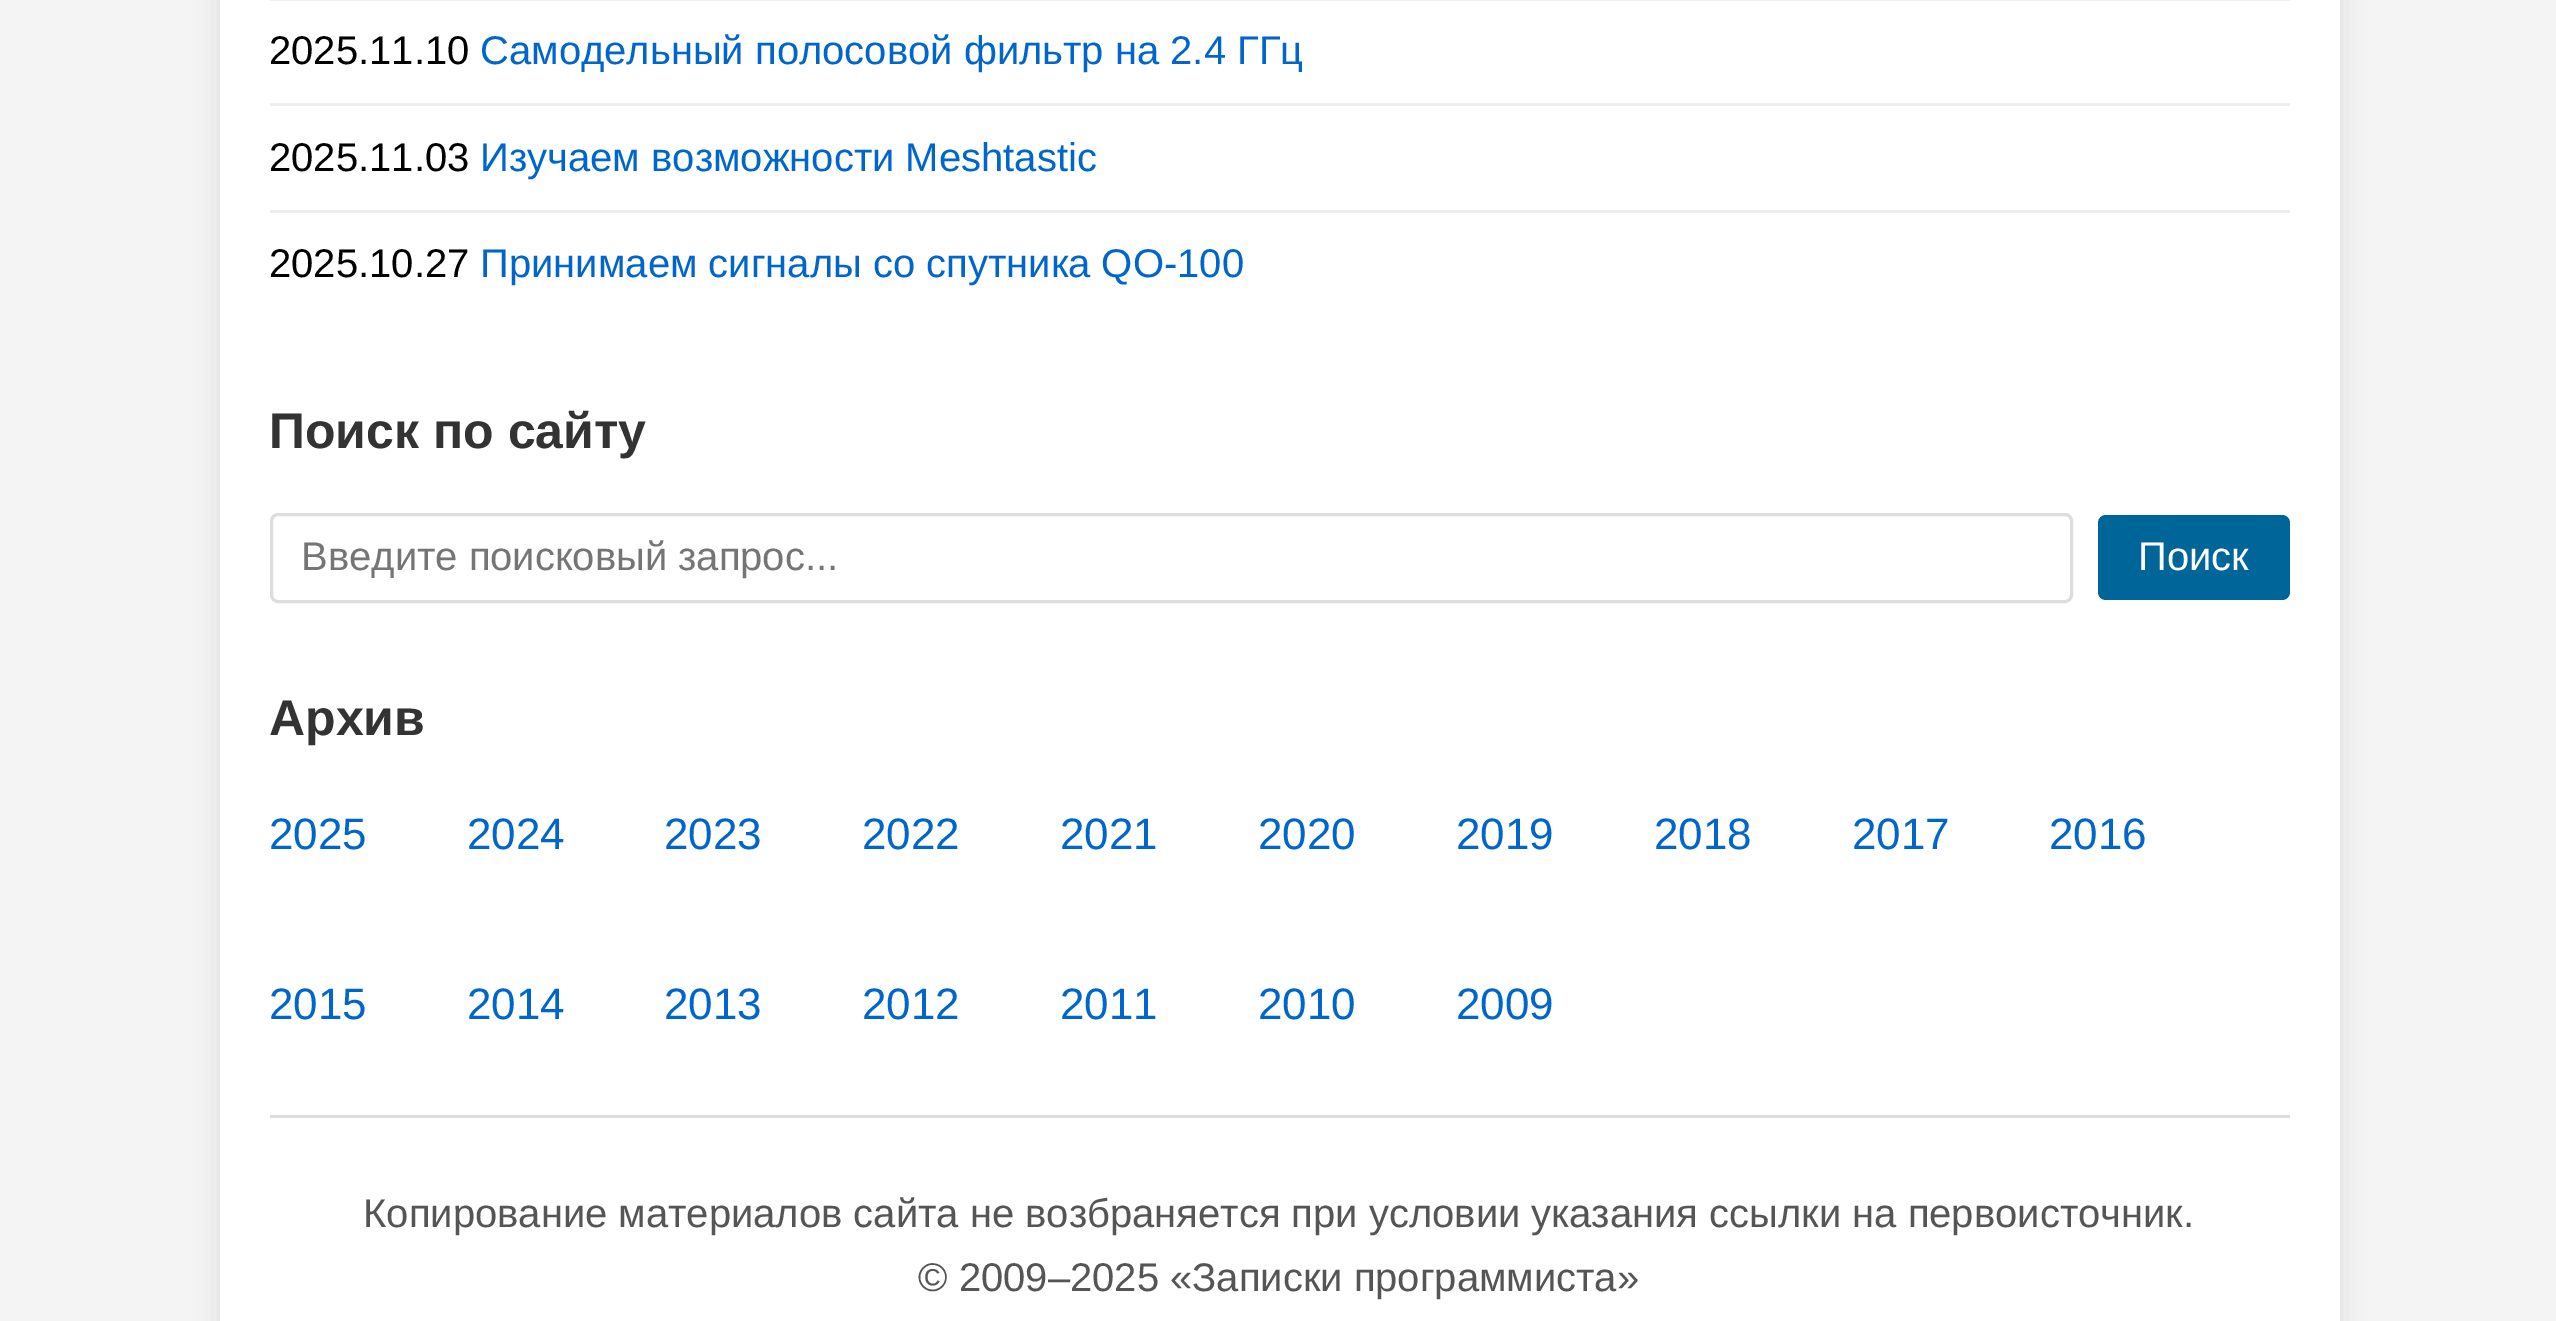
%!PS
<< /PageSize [2556 1321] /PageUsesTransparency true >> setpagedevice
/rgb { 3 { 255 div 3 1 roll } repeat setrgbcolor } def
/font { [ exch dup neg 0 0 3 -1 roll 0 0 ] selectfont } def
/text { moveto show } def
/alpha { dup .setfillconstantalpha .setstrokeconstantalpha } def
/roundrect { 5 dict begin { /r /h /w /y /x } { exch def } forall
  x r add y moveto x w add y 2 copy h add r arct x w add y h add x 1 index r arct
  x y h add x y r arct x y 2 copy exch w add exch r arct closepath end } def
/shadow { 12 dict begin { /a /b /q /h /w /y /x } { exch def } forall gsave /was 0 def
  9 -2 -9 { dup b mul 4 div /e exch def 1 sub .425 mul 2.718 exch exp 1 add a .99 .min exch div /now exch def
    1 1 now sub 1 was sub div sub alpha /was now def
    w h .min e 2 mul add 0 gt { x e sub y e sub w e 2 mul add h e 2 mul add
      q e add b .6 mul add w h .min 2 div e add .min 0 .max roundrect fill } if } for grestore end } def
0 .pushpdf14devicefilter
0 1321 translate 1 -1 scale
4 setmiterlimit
244 244 244 rgb
0 0 2556 1321 rectfill
0 0 0 rgb
220 -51 2120 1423 13 12.5 0.1 shadow
255 255 255 rgb
220 0 2120 1321 rectfill
238 238 238 rgb
270 0 2020 1 rectfill
270 103 2020 3 rectfill
270 210 2020 3 rectfill
221 221 221 rgb
3 setlinewidth
271.5 514.5 1800 87 6.5 roundrect stroke
0 102 153 rgb
2098 515 192 85 8 roundrect fill
221 221 221 rgb
270 1115 2020 3 rectfill
/LiberationSans-Regular 40 font
0 0 0 rgb
(2025.11.10) 269 64 text
0 102 204 rgb
(Самодельный полосовой фильтр на 2.4 ГГц) 480 64 text
0 0 0 rgb
(2025.11.03) 269 171 text
0 102 204 rgb
(Изучаем возможности Meshtastic) 480 171 text
0 0 0 rgb
(2025.10.27) 269 277 text
0 102 204 rgb
(Принимаем сигналы со спутника QO-100) 480 277 text
/LiberationSans-Bold 50 font
51 51 51 rgb
(Поиск по сайту) 269 448 text
/LiberationSans-Regular 40 font
117 117 117 rgb
(Введите поисковый запрос...) 301 570 text
255 255 255 rgb
(Поиск) 2138 570 text
/LiberationSans-Bold 50 font
51 51 51 rgb
(Архив) 269 735 text
/LiberationSans-Regular 44 font
0 102 204 rgb
(2025) 269 849 text
(2024) 467 849 text
(2023) 664 849 text
(2022) 862 849 text
(2021) 1060 849 text
(2020) 1258 849 text
(2019) 1456 849 text
(2018) 1654 849 text
(2017) 1852 849 text
(2016) 2049 849 text
(2015) 269 1019 text
(2014) 467 1019 text
(2013) 664 1019 text
(2012) 862 1019 text
(2011) 1060 1019 text
(2010) 1258 1019 text
(2009) 1456 1019 text
/LiberationSans-Regular 40 font
85 85 85 rgb
(Копирование материалов сайта не возбраняется при условии указания ссылки на первоисточник.) 363 1227 text
(© 2009–2025 «Записки программиста») 918 1291 text
.poppdf14devicefilter showpage
